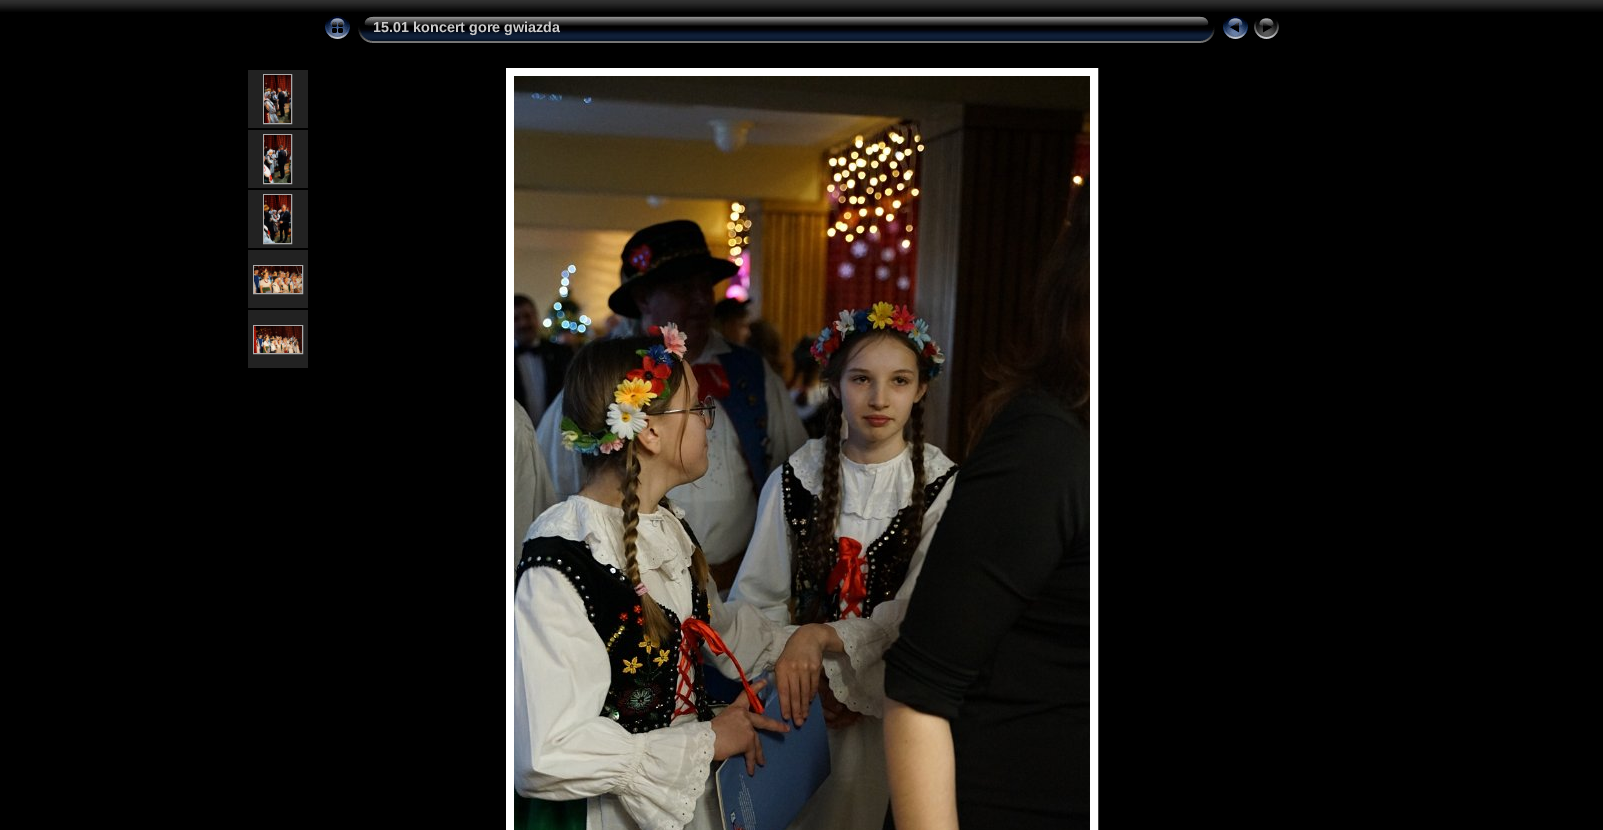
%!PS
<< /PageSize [1603 830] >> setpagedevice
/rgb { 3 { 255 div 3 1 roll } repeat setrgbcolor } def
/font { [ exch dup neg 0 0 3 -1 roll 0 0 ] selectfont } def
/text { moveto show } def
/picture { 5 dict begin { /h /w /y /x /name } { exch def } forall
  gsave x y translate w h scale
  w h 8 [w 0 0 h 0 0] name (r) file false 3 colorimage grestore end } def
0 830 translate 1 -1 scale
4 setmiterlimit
0 0 0 rgb
0 0 1603 830 rectfill
(img_01.rgb) 0 0 1603 12 picture
(img_02.rgb) 325 16 25 23 picture
(img_03.rgb) 358 16 15 27 picture
(img_04.rgb) 373 16 827 27 picture
(img_05.rgb) 1200 16 15 27 picture
(img_06.rgb) 1223 16 25 23 picture
(img_07.rgb) 1254 18 25 21 picture
34 34 34 rgb
248 70 60 58 rectfill
170 170 170 rgb
263.5 74.5 28 49 rectstroke
(img_08.rgb) 264 75 27 48 picture
34 34 34 rgb
248 130 60 58 rectfill
170 170 170 rgb
263.5 134.5 28 49 rectstroke
(img_09.rgb) 264 135 27 48 picture
34 34 34 rgb
248 190 60 58 rectfill
170 170 170 rgb
263.5 194.5 28 49 rectstroke
(img_10.rgb) 264 195 27 48 picture
34 34 34 rgb
248 250 60 58 rectfill
170 170 170 rgb
253.5 265.5 49 28 rectstroke
(img_11.rgb) 254 266 48 27 picture
34 34 34 rgb
248 310 60 58 rectfill
170 170 170 rgb
253.5 325.5 49 28 rectstroke
(img_12.rgb) 254 326 48 27 picture
255 255 255 rgb
8 setlinewidth
510 72 584 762 rectstroke
(img_13.rgb) 514 76 576 754 picture
/LiberationSans-Bold 14.4 font
204 204 204 rgb
(15.01 koncert gore gwiazda) 373 32 text
showpage
